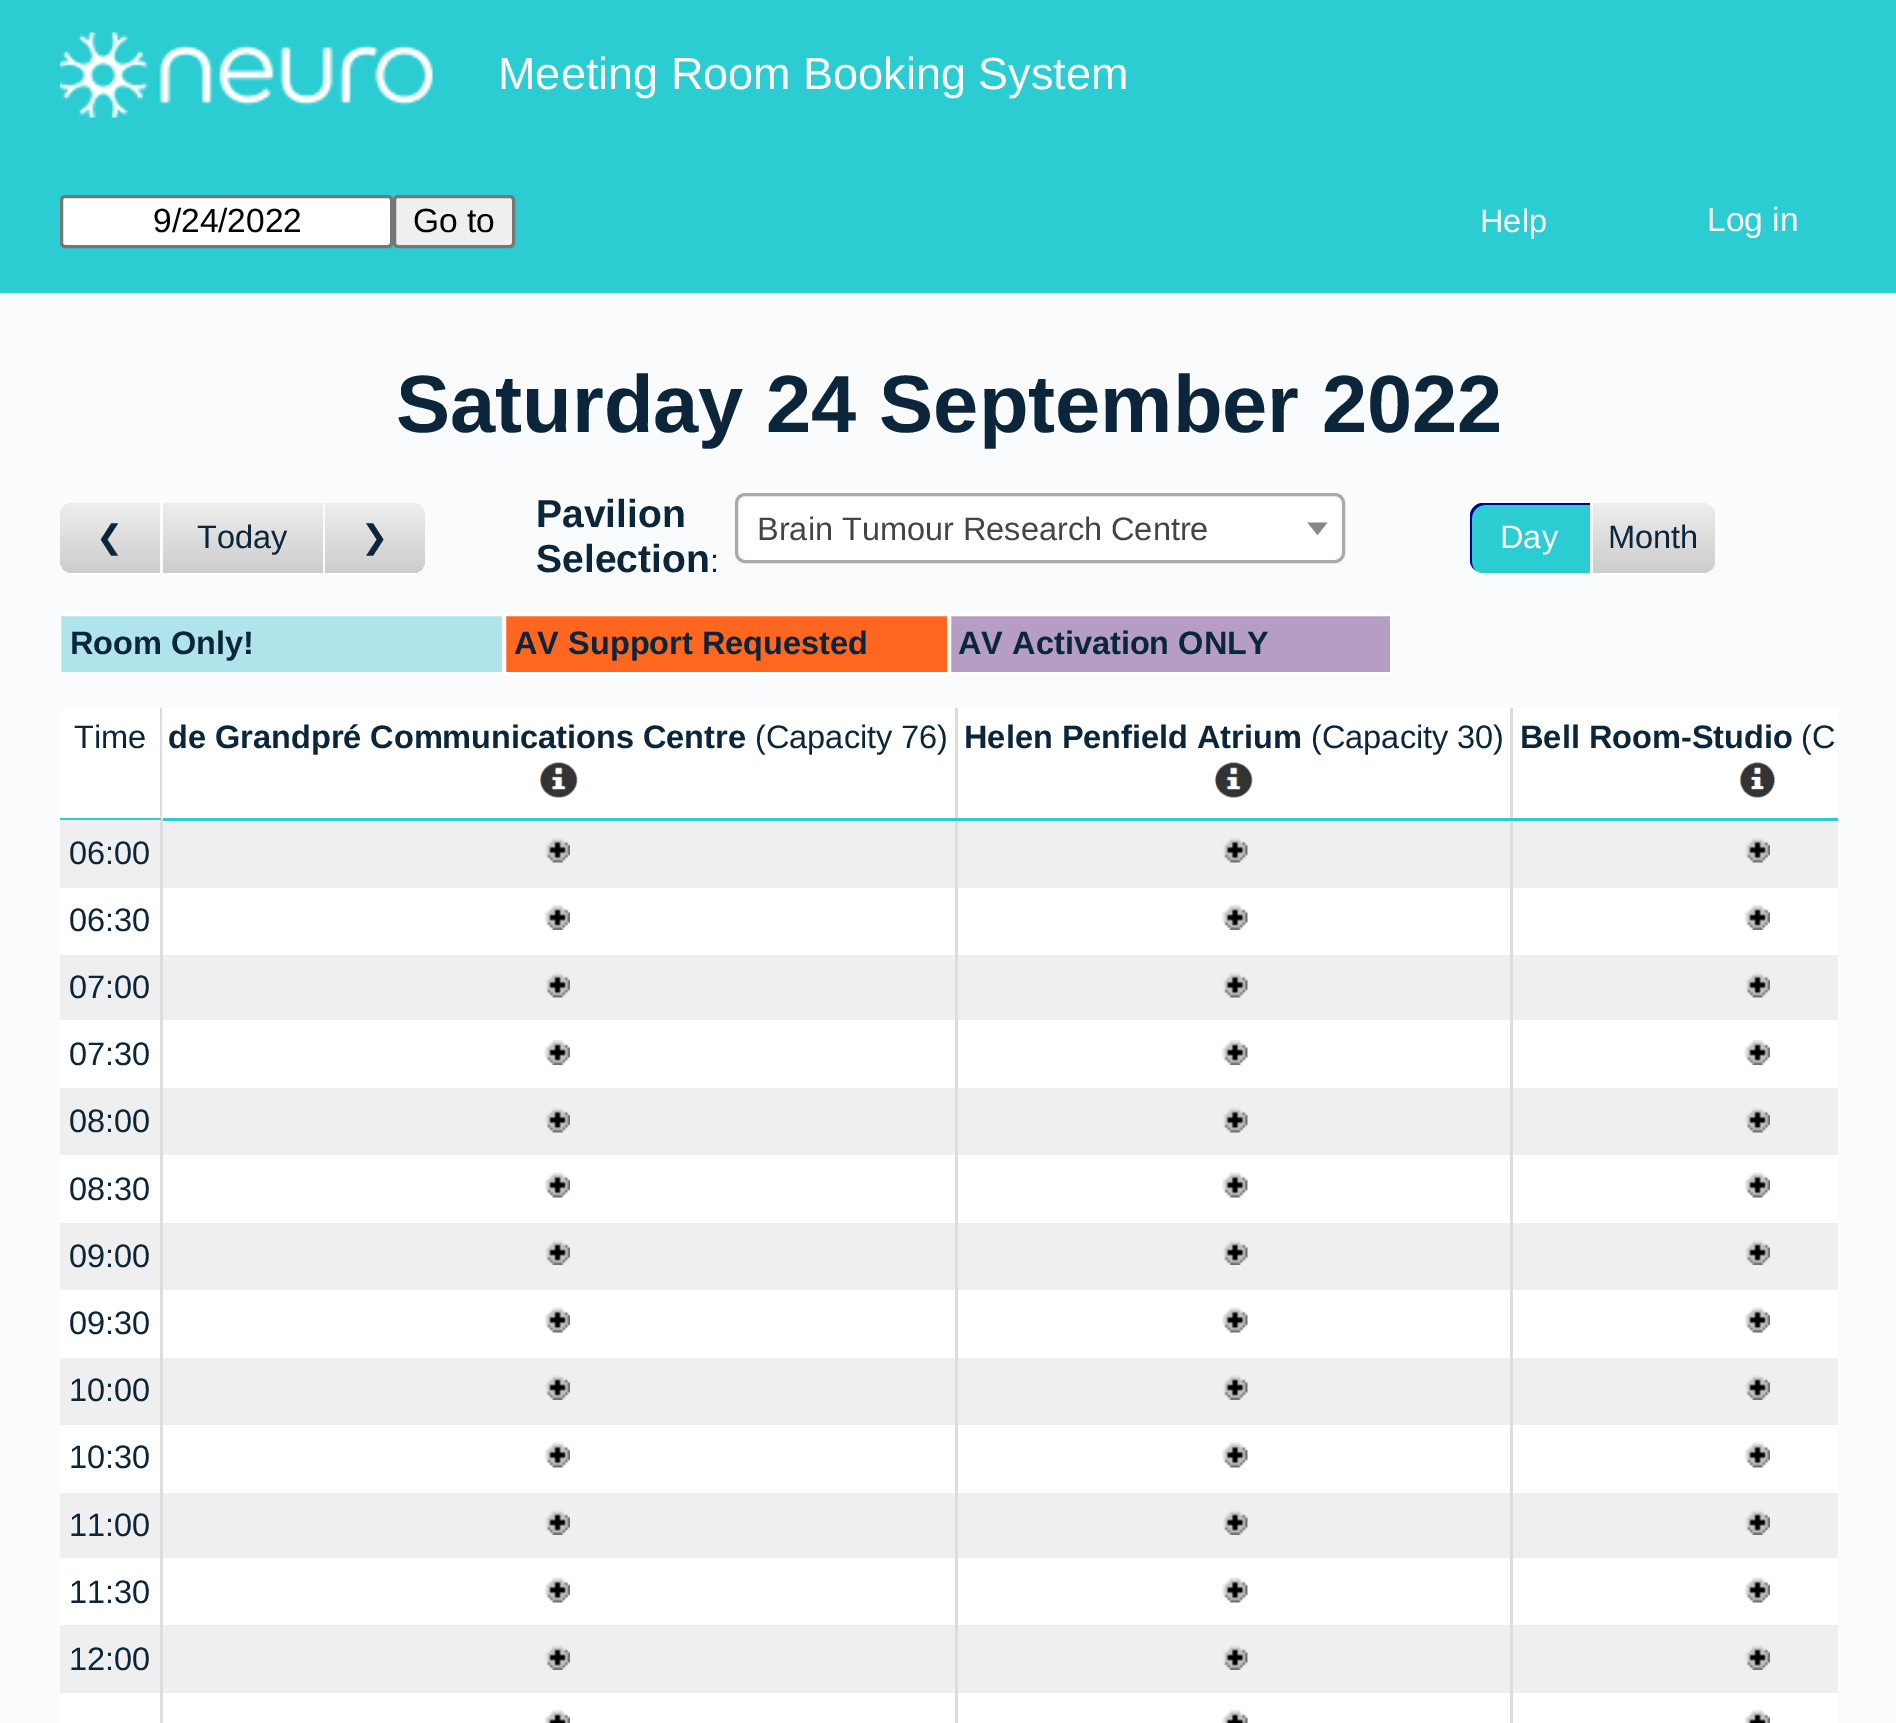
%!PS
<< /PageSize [1896 1723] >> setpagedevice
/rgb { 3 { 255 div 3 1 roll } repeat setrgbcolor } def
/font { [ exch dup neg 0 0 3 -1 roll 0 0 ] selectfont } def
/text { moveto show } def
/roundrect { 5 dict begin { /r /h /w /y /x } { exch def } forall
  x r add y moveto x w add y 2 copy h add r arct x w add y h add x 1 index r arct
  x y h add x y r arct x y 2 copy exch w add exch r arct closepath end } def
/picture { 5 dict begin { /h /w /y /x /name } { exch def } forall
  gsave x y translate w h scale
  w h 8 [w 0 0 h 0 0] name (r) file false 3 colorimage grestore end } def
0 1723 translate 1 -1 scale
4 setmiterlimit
249 251 252 rgb
0 0 1896 1723 rectfill
44 204 211 rgb
0 0 1896 293 rectfill
(img_01.rgb) 60 32 373 86 picture
255 255 255 rgb
61.5 196.5 330 50 3.5 roundrect gsave fill grestore
118 118 118 rgb
3 setlinewidth
stroke
239 239 239 rgb
394.5 196.5 119 50 3.5 roundrect gsave fill grestore
118 118 118 rgb
stroke
gsave 73 503 moveto 90 0 rlineto 0 70 rlineto -90 0 rlineto -7 0 -13 -6 -13 -13 rcurveto 0 -44 rlineto 0 -7 6 -13 13 -13 rcurveto closepath clip newpath
<< /ShadingType 2 /ColorSpace /DeviceRGB /Coords [110 503 110 573] /Extend [true true] /Function << /FunctionType 2 /Domain [0 1] /C0 [0.933 0.933 0.933] /C1 [0.8 0.8 0.8] /N 1 >> >> shfill grestore
249 251 252 rgb
160 503 3 70 rectfill
gsave 163 503 moveto 160 0 rlineto 0 70 rlineto -160 0 rlineto closepath clip newpath
<< /ShadingType 2 /ColorSpace /DeviceRGB /Coords [243 503 243 573] /Extend [true true] /Function << /FunctionType 2 /Domain [0 1] /C0 [0.933 0.933 0.933] /C1 [0.8 0.8 0.8] /N 1 >> >> shfill grestore
gsave 325 503 moveto 87 0 rlineto 7 0 13 6 13 13 rcurveto 0 44 rlineto 0 7 -6 13 -13 13 rcurveto -87 0 rlineto closepath clip newpath
<< /ShadingType 2 /ColorSpace /DeviceRGB /Coords [375 503 375 573] /Extend [true true] /Function << /FunctionType 2 /Domain [0 1] /C0 [0.933 0.933 0.933] /C1 [0.8 0.8 0.8] /N 1 >> >> shfill grestore
255 255 255 rgb
736.5 494.5 607 67 8.5 roundrect gsave fill grestore
170 170 170 rgb
stroke
136 136 136 rgb
1307.5 522.5 moveto 20 0 rlineto -10 12.5 rlineto closepath fill
44 204 211 rgb
1483 503 moveto 110 0 rlineto 0 70 rlineto -110 0 rlineto -7 0 -13 -6 -13 -13 rcurveto 0 -44 rlineto 0 -7 6 -13 13 -13 rcurveto closepath fill
0 0 139 rgb
1485 505 moveto 105 0 rlineto 0 -2 rlineto -107 0 rlineto -7 0 -13 6 -13 13 rcurveto 0 44 rlineto 0 4 2 8 5 10 rcurveto -2 -2 -3 -5 -3 -8 rcurveto 0 -44 rlineto 0 -7 6 -13 13 -13 rcurveto closepath fill
249 251 252 rgb
1590 503 3 70 rectfill
gsave 1593 503 moveto 109 0 rlineto 7 0 13 6 13 13 rcurveto 0 44 rlineto 0 7 -6 13 -13 13 rcurveto -109 0 rlineto closepath clip newpath
<< /ShadingType 2 /ColorSpace /DeviceRGB /Coords [1654 503 1654 573] /Extend [true true] /Function << /FunctionType 2 /Domain [0 1] /C0 [0.933 0.933 0.933] /C1 [0.8 0.8 0.8] /N 1 >> >> shfill grestore
175 228 235 rgb
61 616 441 56 rectfill
gsave
60 293 1778 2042 rectclip
255 255 255 rgb
59.5 614.5 444 59 rectstroke
grestore
255 103 32 rgb
504.5 614.5 moveto 444 0 rlineto 0 59 rlineto -444 0 rlineto closepath gsave fill grestore
255 255 255 rgb
stroke
181 157 195 rgb
949.5 614.5 moveto 442 0 rlineto 0 59 rlineto -442 0 rlineto closepath gsave fill grestore
255 255 255 rgb
stroke
73 708 moveto 87 0 rlineto 0 110 rlineto -100 0 rlineto 0 -97 rlineto 0 -7 6 -13 13 -13 rcurveto closepath fill
221 221 221 rgb
162 820 moveto -2 -2 rlineto 0 -110 rlineto 2 0 rlineto closepath fill
44 204 211 rgb
60 818 moveto 0 2 rlineto 102 0 rlineto -2 -2 rlineto closepath fill
255 255 255 rgb
163 708 792 110 rectfill
221 221 221 rgb
955 708 3 1015 rectfill
1510 708 3 1015 rectfill
44 204 211 rgb
163 818 1675 3 rectfill
(img_02.rgb) 540 762 38 36 picture
255 255 255 rgb
958 708 552 110 rectfill
(img_02.rgb) 1215 762 38 36 picture
1513 708 325 110 rectfill
(img_03.rgb) 1739 762 36 36 picture
239 239 239 rgb
60 820 100 68 rectfill
221 221 221 rgb
160 820 3 903 rectfill
239 239 239 rgb
163 821 792 67 rectfill
(img_04.rgb) 545 837 25 26 picture
958 821 552 67 rectfill
(img_05.rgb) 1222 837 26 26 picture
1513 821 325 67 rectfill
(img_04.rgb) 1745 837 25 26 picture
255 255 255 rgb
60 888 100 67 rectfill
163 888 792 67 rectfill
(img_06.rgb) 545 905 25 25 picture
958 888 552 67 rectfill
(img_07.rgb) 1222 905 26 25 picture
1513 888 325 67 rectfill
(img_06.rgb) 1745 905 25 25 picture
239 239 239 rgb
60 955 100 65 rectfill
163 955 792 65 rectfill
(img_04.rgb) 545 972 25 26 picture
958 955 552 65 rectfill
(img_05.rgb) 1222 972 26 26 picture
1513 955 325 65 rectfill
(img_04.rgb) 1745 972 25 26 picture
255 255 255 rgb
60 1020 100 68 rectfill
163 1020 792 68 rectfill
(img_06.rgb) 545 1040 25 25 picture
958 1020 552 68 rectfill
(img_07.rgb) 1222 1040 26 25 picture
1513 1020 325 68 rectfill
(img_06.rgb) 1745 1040 25 25 picture
239 239 239 rgb
60 1088 100 67 rectfill
163 1088 792 67 rectfill
(img_04.rgb) 545 1107 25 26 picture
958 1088 552 67 rectfill
(img_05.rgb) 1222 1107 26 26 picture
1513 1088 325 67 rectfill
(img_04.rgb) 1745 1107 25 26 picture
255 255 255 rgb
60 1155 100 68 rectfill
163 1155 792 68 rectfill
(img_08.rgb) 545 1172 25 26 picture
958 1155 552 68 rectfill
(img_09.rgb) 1222 1172 26 26 picture
1513 1155 325 68 rectfill
(img_08.rgb) 1745 1172 25 26 picture
239 239 239 rgb
60 1223 100 67 rectfill
163 1223 792 67 rectfill
(img_10.rgb) 545 1240 25 25 picture
958 1223 552 67 rectfill
(img_11.rgb) 1222 1240 26 25 picture
1513 1223 325 67 rectfill
(img_10.rgb) 1745 1240 25 25 picture
255 255 255 rgb
60 1290 100 68 rectfill
163 1290 792 68 rectfill
(img_12.rgb) 545 1307 25 26 picture
958 1290 552 68 rectfill
(img_13.rgb) 1222 1307 26 26 picture
1513 1290 325 68 rectfill
(img_12.rgb) 1745 1307 25 26 picture
239 239 239 rgb
60 1358 100 67 rectfill
163 1358 792 67 rectfill
(img_10.rgb) 545 1375 25 25 picture
958 1358 552 67 rectfill
(img_11.rgb) 1222 1375 26 25 picture
1513 1358 325 67 rectfill
(img_10.rgb) 1745 1375 25 25 picture
255 255 255 rgb
60 1425 100 68 rectfill
163 1425 792 68 rectfill
(img_12.rgb) 545 1442 25 26 picture
958 1425 552 68 rectfill
(img_13.rgb) 1222 1442 26 26 picture
1513 1425 325 68 rectfill
(img_12.rgb) 1745 1442 25 26 picture
239 239 239 rgb
60 1493 100 65 rectfill
163 1493 792 65 rectfill
(img_10.rgb) 545 1510 25 25 picture
958 1493 552 65 rectfill
(img_11.rgb) 1222 1510 26 25 picture
1513 1493 325 65 rectfill
(img_10.rgb) 1745 1510 25 25 picture
255 255 255 rgb
60 1558 100 67 rectfill
163 1558 792 67 rectfill
(img_12.rgb) 545 1577 25 26 picture
958 1558 552 67 rectfill
(img_13.rgb) 1222 1577 26 26 picture
1513 1558 325 67 rectfill
(img_12.rgb) 1745 1577 25 26 picture
239 239 239 rgb
60 1625 100 68 rectfill
163 1625 792 68 rectfill
(img_10.rgb) 545 1645 25 25 picture
958 1625 552 68 rectfill
(img_11.rgb) 1222 1645 26 25 picture
1513 1625 325 68 rectfill
(img_10.rgb) 1745 1645 25 25 picture
255 255 255 rgb
60 1693 100 30 rectfill
163 1693 792 30 rectfill
(img_14.rgb) 545 1710 25 13 picture
958 1693 552 30 rectfill
(img_15.rgb) 1222 1710 26 13 picture
1513 1693 325 30 rectfill
(img_14.rgb) 1745 1710 25 13 picture
/LiberationSans-Regular 45 font
(Meeting Room Booking System) 498 89 text
/LiberationSans-Regular 33.5 font
0 0 0 rgb
(9/24/2022) 153 232 text
(Go to) 413 232 text
/LiberationSans-Regular 32.5 font
255 255 255 rgb
(Help) 1480 232 text
/LiberationSans-Regular 33.5 font
(Log in) 1707 231 text
/LiberationSans-Bold 81.25 font
11 38 59 rgb
(Saturday 24 September 2022) 396 432 text
/DejaVuSans-Regular 32.5 font
(❮) 96 548 text
/LiberationSans-Regular 32.5 font
(Today) 197 548 text
/DejaVuSans-Regular 32.5 font
(❯) 361 548 text
/LiberationSans-Bold 39 font
(Pavilion) 536 527 text
(Selection) 536 572 text
/LiberationSans-Regular 32.5 font
(:) 710 572 text
68 68 68 rgb
(Brain Tumour Research Centre) 757 540 text
255 255 255 rgb
(Day) 1500 548 text
11 38 59 rgb
(Month) 1608 548 text
/LiberationSans-Bold 32.5 font
(Room Only!) 70 654 text
(AV Support Requested) 514 654 text
(AV Activation ONLY) 958 654 text
/LiberationSans-Regular 32.5 font
(Time) 74 748 text
/LiberationSans-Bold 32.5 font
(de Grandpré Communications Centre) 168 748 text
/LiberationSans-Regular 32.5 font
(\(Capacity 76\)) 755 748 text
/LiberationSans-Bold 32.5 font
(Helen Penfield Atrium) 964 748 text
/LiberationSans-Regular 32.5 font
(\(Capacity 30\)) 1311 748 text
/LiberationSans-Bold 32.5 font
(Bell Room-Studio) 1520 748 text
/LiberationSans-Regular 32.5 font
(\(C) 1801 748 text
(06:00) 69 864 text
(06:30) 69 931 text
(07:00) 69 998 text
(07:30) 69 1065 text
(08:00) 69 1132 text
(08:30) 69 1200 text
(09:00) 69 1267 text
(09:30) 69 1334 text
(10:00) 69 1401 text
(10:30) 69 1468 text
(11:00) 69 1536 text
(11:30) 69 1603 text
(12:00) 69 1670 text
showpage
